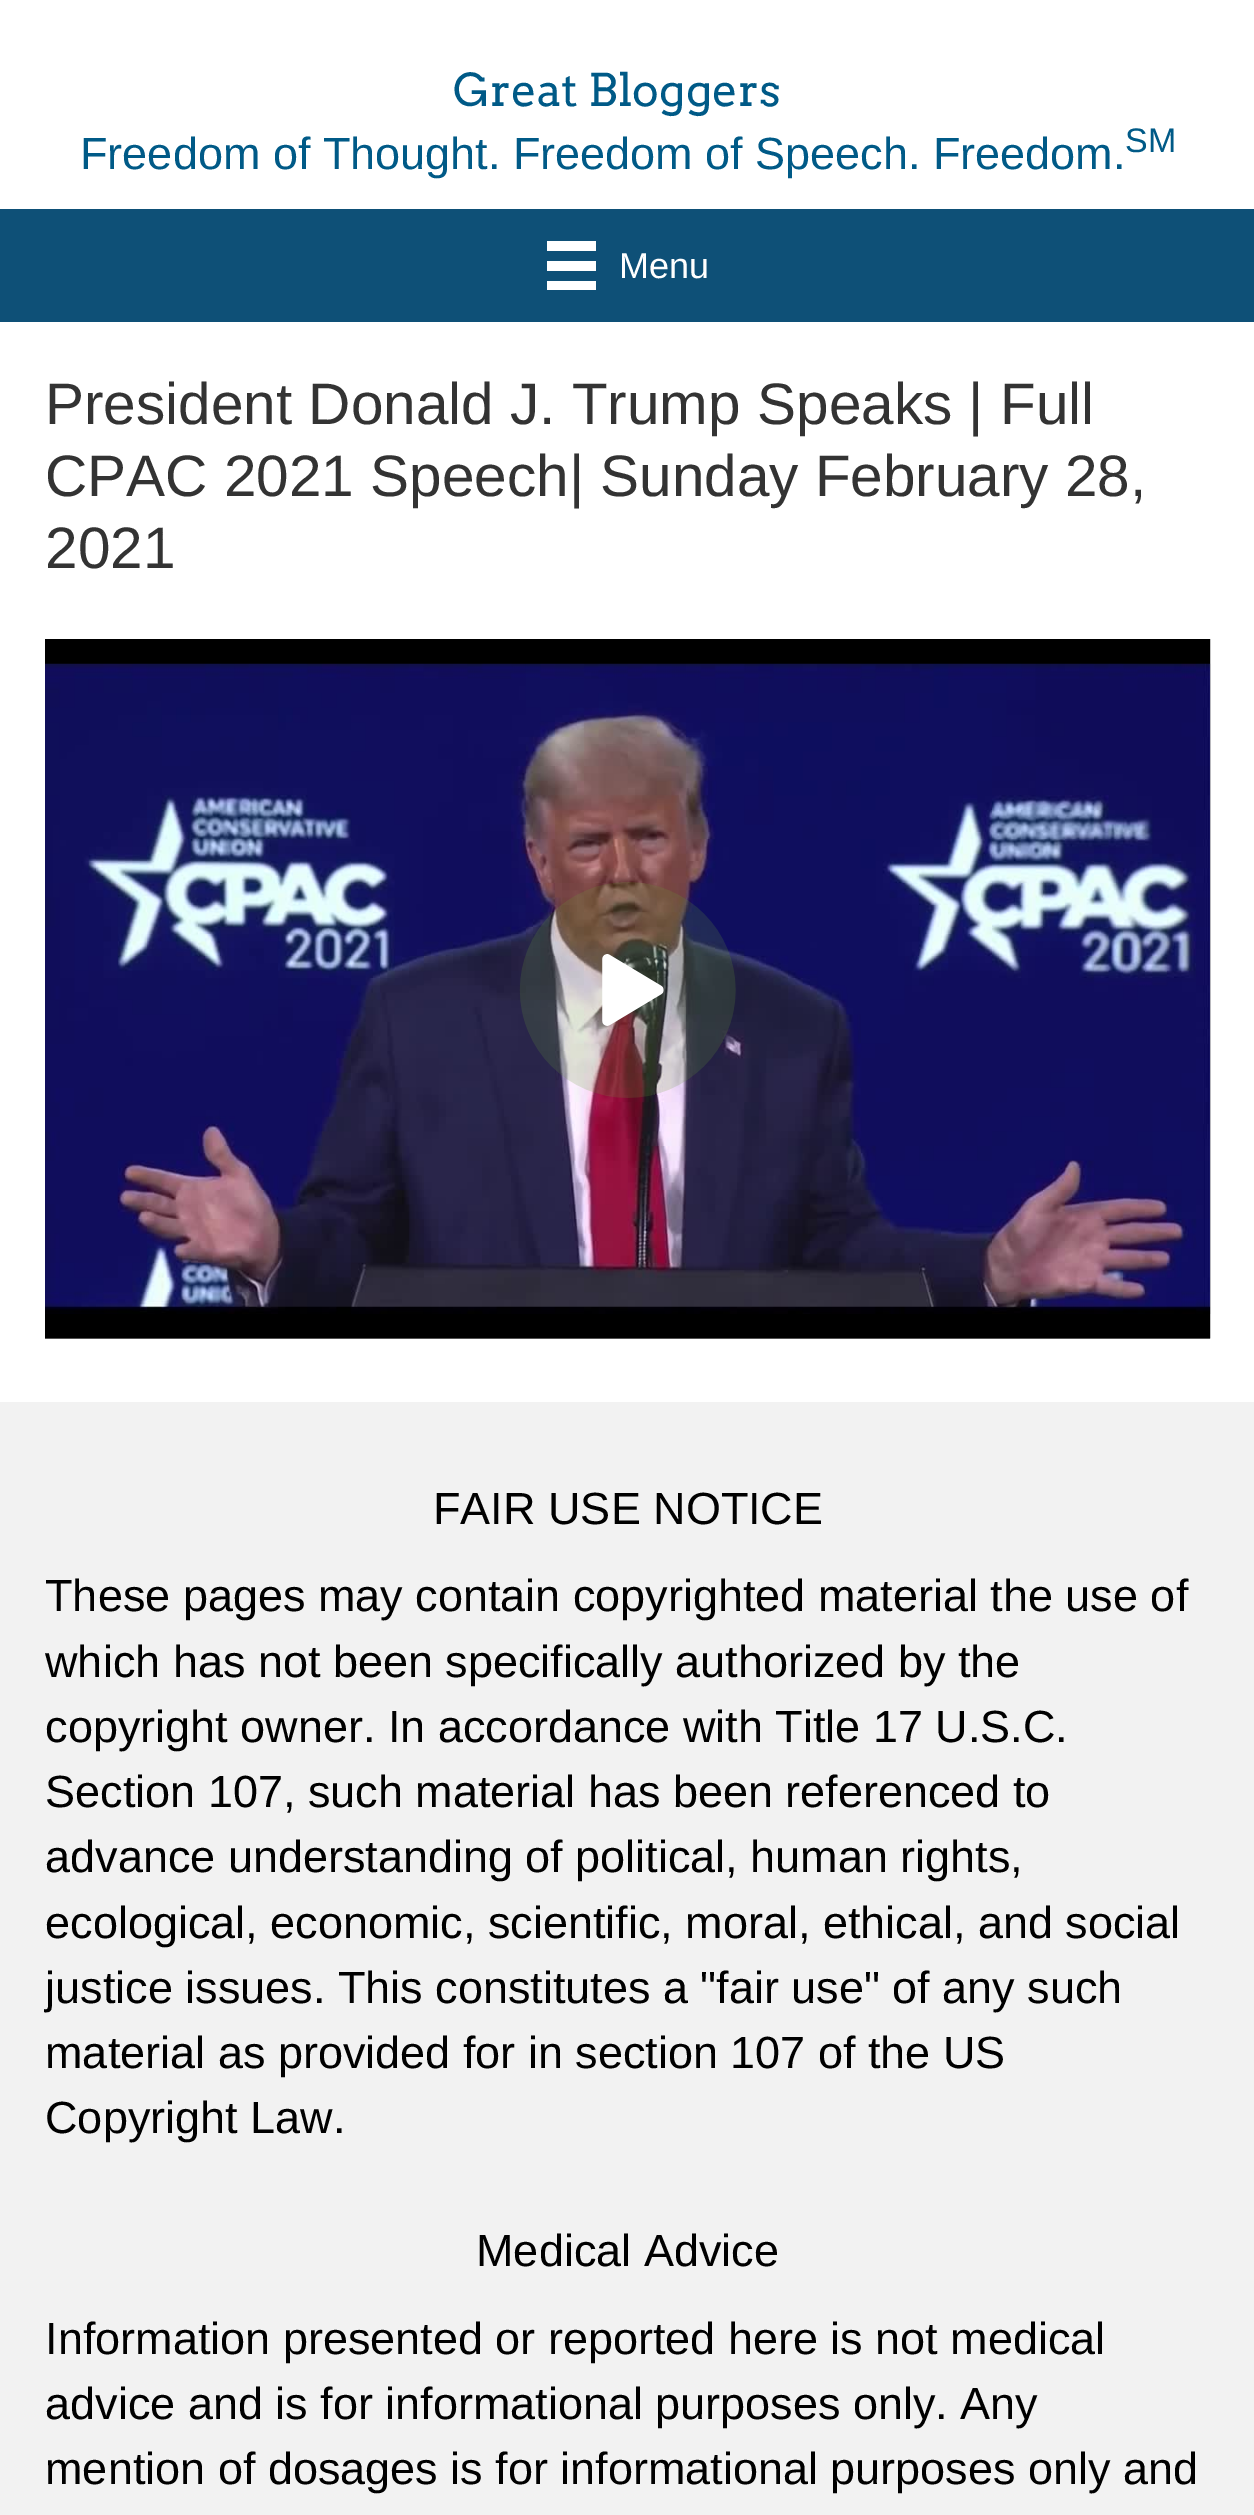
%!PS
<< /PageSize [1254 2515] >> setpagedevice
/rgb { 3 { 255 div 3 1 roll } repeat setrgbcolor } def
/font { [ exch dup neg 0 0 3 -1 roll 0 0 ] selectfont } def
/text { moveto show } def
/picture { 5 dict begin { /h /w /y /x /name } { exch def } forall
  gsave x y translate w h scale
  w h 8 [w 0 0 h 0 0] name (r) file false 3 colorimage grestore end } def
0 2515 translate 1 -1 scale
4 setmiterlimit
242 242 242 rgb
0 0 1254 2515 rectfill
255 255 255 rgb
0 0 1254 209 rectfill
14 80 119 rgb
0 209 1254 113 rectfill
255 255 255 rgb
547 241 49 10 rectfill
547 261 49 10 rectfill
547 281 49 9 rectfill
0 322 1254 1080 rectfill
(img_01.rgb) 45 639 1166 700 picture
/Arvo-Regular 45 font
0 90 135 rgb
(Great Bloggers) 453 106 text
/LiberationSans-Regular 45 font
(Freedom of Thought. Freedom of Speech. Freedom.) 80 169 text
/LiberationSans-Regular 34 font
(SM) 1125 152 text
/LiberationSans-Regular 36 font
255 255 255 rgb
(Menu) 619 278 text
/LiberationSans-Regular 58.5 font
51 51 51 rgb
(President Donald J. Trump Speaks | Full) 45 424 text
(CPAC 2021 Speech| Sunday February 28,) 45 496 text
(2021) 45 568 text
/LiberationSans-Regular 45 font
0 0 0 rgb
(FAIR USE NOTICE) 433 1524 text
(These pages may contain copyrighted material the use of) 45 1611 text
(which has not been specifically authorized by the) 45 1677 text
(copyright owner. In accordance with Title 17 U.S.C.) 45 1742 text
(Section 107, such material has been referenced to) 45 1807 text
(advance understanding of political, human rights,) 45 1872 text
(ecological, economic, scientific, moral, ethical, and social) 45 1938 text
(justice issues. This constitutes a "fair use" of any such) 45 2003 text
(material as provided for in section 107 of the US) 45 2068 text
(Copyright Law.) 45 2133 text
(Medical Advice) 476 2266 text
(Information presented or reported here is not medical) 45 2354 text
(advice and is for informational purposes only. Any) 45 2419 text
(mention of dosages is for informational purposes only and) 45 2484 text
showpage
